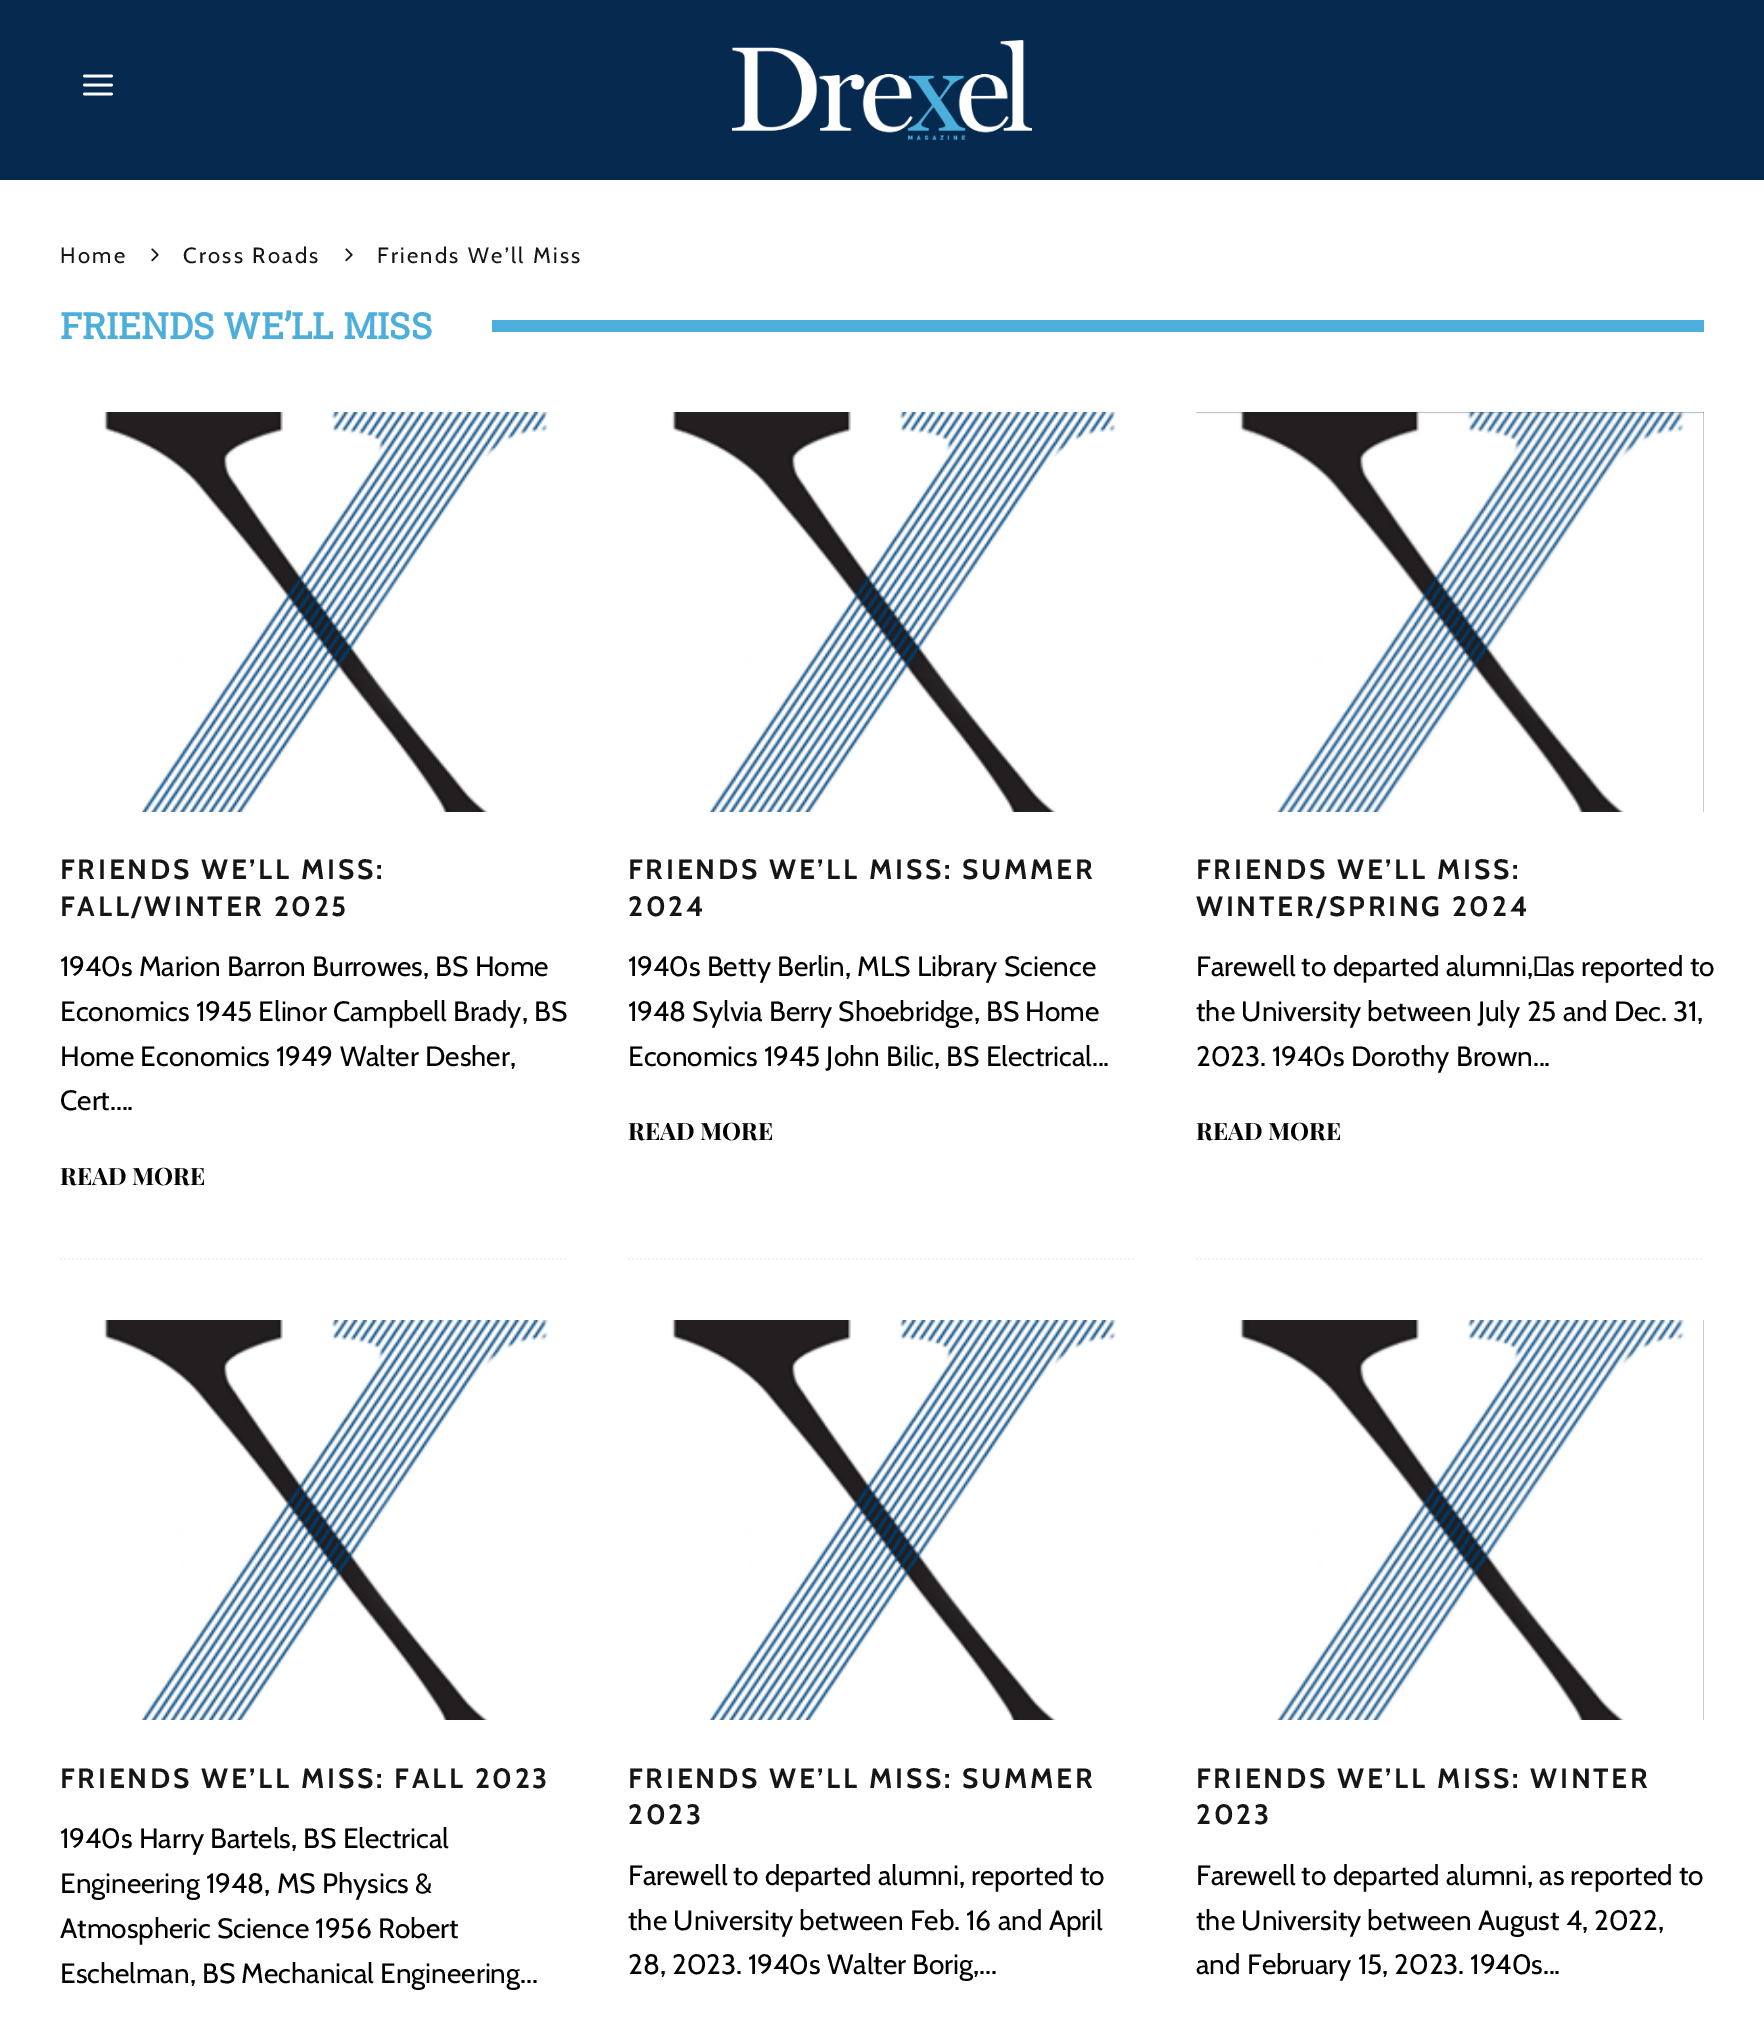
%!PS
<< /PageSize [1764 2037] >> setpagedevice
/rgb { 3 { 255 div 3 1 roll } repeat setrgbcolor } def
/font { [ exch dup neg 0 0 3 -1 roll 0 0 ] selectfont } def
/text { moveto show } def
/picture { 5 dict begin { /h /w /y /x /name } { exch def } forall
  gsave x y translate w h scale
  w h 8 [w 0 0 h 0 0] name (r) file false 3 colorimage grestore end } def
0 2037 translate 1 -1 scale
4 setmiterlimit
255 255 255 rgb
0 0 1764 2037 rectfill
5 41 79 rgb
0 0 1764 180 rectfill
(img_01.rgb) 83 74 30 22 picture
(img_02.rgb) 732 40 300 100 picture
(img_03.rgb) 151 248 8 14 picture
(img_03.rgb) 345 248 8 14 picture
76 174 218 rgb
492 320 1212 12 rectfill
242 242 242 rgb
2 setlinewidth
[2 2] 0 setdash
60 1259 moveto 508 0 rlineto stroke
(img_04.rgb) 60 412 508 400 picture
628 1259 moveto 508 0 rlineto stroke
(img_05.rgb) 628 412 508 400 picture
1196 1259 moveto 508 0 rlineto stroke
5 41 79 rgb
1196 412 508 400 rectfill
(img_06.rgb) 1196 412 508 400 picture
(img_07.rgb) 60 1320 508 400 picture
(img_08.rgb) 628 1320 508 400 picture
(img_09.rgb) 1196 1320 508 400 picture
/Cabin-Regular 22 font
22 22 22 rgb
60 263 moveto 2.25 0 (Home) ashow
183 263 moveto 2.25 0 (Cross Roads) ashow
377 263 moveto 2.25 0 (Friends We’ll Miss) ashow
/RobotoSlab-Bold 36 font
76 174 218 rgb
(FRIENDS WE’LL MISS) 60 339 text
/Cabin-Bold 28 font
22 22 22 rgb
60 879 moveto 2.8 0 (FRIENDS WE’LL MISS:) ashow
60 916 moveto 2.8 0 (FALL/WINTER 2025) ashow
/Cabin-Regular 28 font
0 0 0 rgb
(1940s Marion Barron Burrowes, BS Home) 60 976 text
(Economics 1945 Elinor Campbell Brady, BS) 60 1021 text
(Home Economics 1949 Walter Desher,) 60 1066 text
(Cert....) 60 1110 text
/PlayfairDisplay-Bold 24 font
(READ MORE) 60 1185 text
/Cabin-Bold 28 font
22 22 22 rgb
628 879 moveto 2.8 0 (FRIENDS WE’LL MISS: SUMMER) ashow
628 916 moveto 2.8 0 (2024) ashow
/Cabin-Regular 28 font
0 0 0 rgb
(1940s Betty Berlin, MLS Library Science) 628 976 text
(1948 Sylvia Berry Shoebridge, BS Home) 628 1021 text
(Economics 1945 John Bilic, BS Electrical...) 628 1066 text
/PlayfairDisplay-Bold 24 font
(READ MORE) 628 1140 text
/Cabin-Bold 28 font
22 22 22 rgb
1196 879 moveto 2.8 0 (FRIENDS WE’LL MISS:) ashow
1196 916 moveto 2.8 0 (WINTER/SPRING 2024) ashow
/Cabin-Regular 28 font
0 0 0 rgb
(Farewell to departed alumni, as reported to) 1196 976 text
(the University between July 25 and Dec. 31,) 1196 1021 text
(2023. 1940s Dorothy Brown...) 1196 1066 text
/PlayfairDisplay-Bold 24 font
(READ MORE) 1196 1140 text
/Cabin-Bold 28 font
22 22 22 rgb
60 1788 moveto 2.8 0 (FRIENDS WE’LL MISS: FALL 2023) ashow
/Cabin-Regular 28 font
0 0 0 rgb
(1940s Harry Bartels, BS Electrical) 60 1848 text
(Engineering 1948, MS Physics &) 60 1893 text
(Atmospheric Science 1956 Robert) 60 1938 text
(Eschelman, BS Mechanical Engineering...) 60 1983 text
/Cabin-Bold 28 font
22 22 22 rgb
628 1788 moveto 2.8 0 (FRIENDS WE’LL MISS: SUMMER) ashow
628 1824 moveto 2.8 0 (2023) ashow
/Cabin-Regular 28 font
0 0 0 rgb
(Farewell to departed alumni, reported to) 628 1885 text
(the University between Feb. 16 and April) 628 1930 text
(28, 2023. 1940s Walter Borig,...) 628 1974 text
/Cabin-Bold 28 font
22 22 22 rgb
1196 1788 moveto 2.8 0 (FRIENDS WE’LL MISS: WINTER) ashow
1196 1824 moveto 2.8 0 (2023) ashow
/Cabin-Regular 28 font
0 0 0 rgb
(Farewell to departed alumni, as reported to) 1196 1885 text
(the University between August 4, 2022,) 1196 1930 text
(and February 15, 2023. 1940s...) 1196 1974 text
showpage
